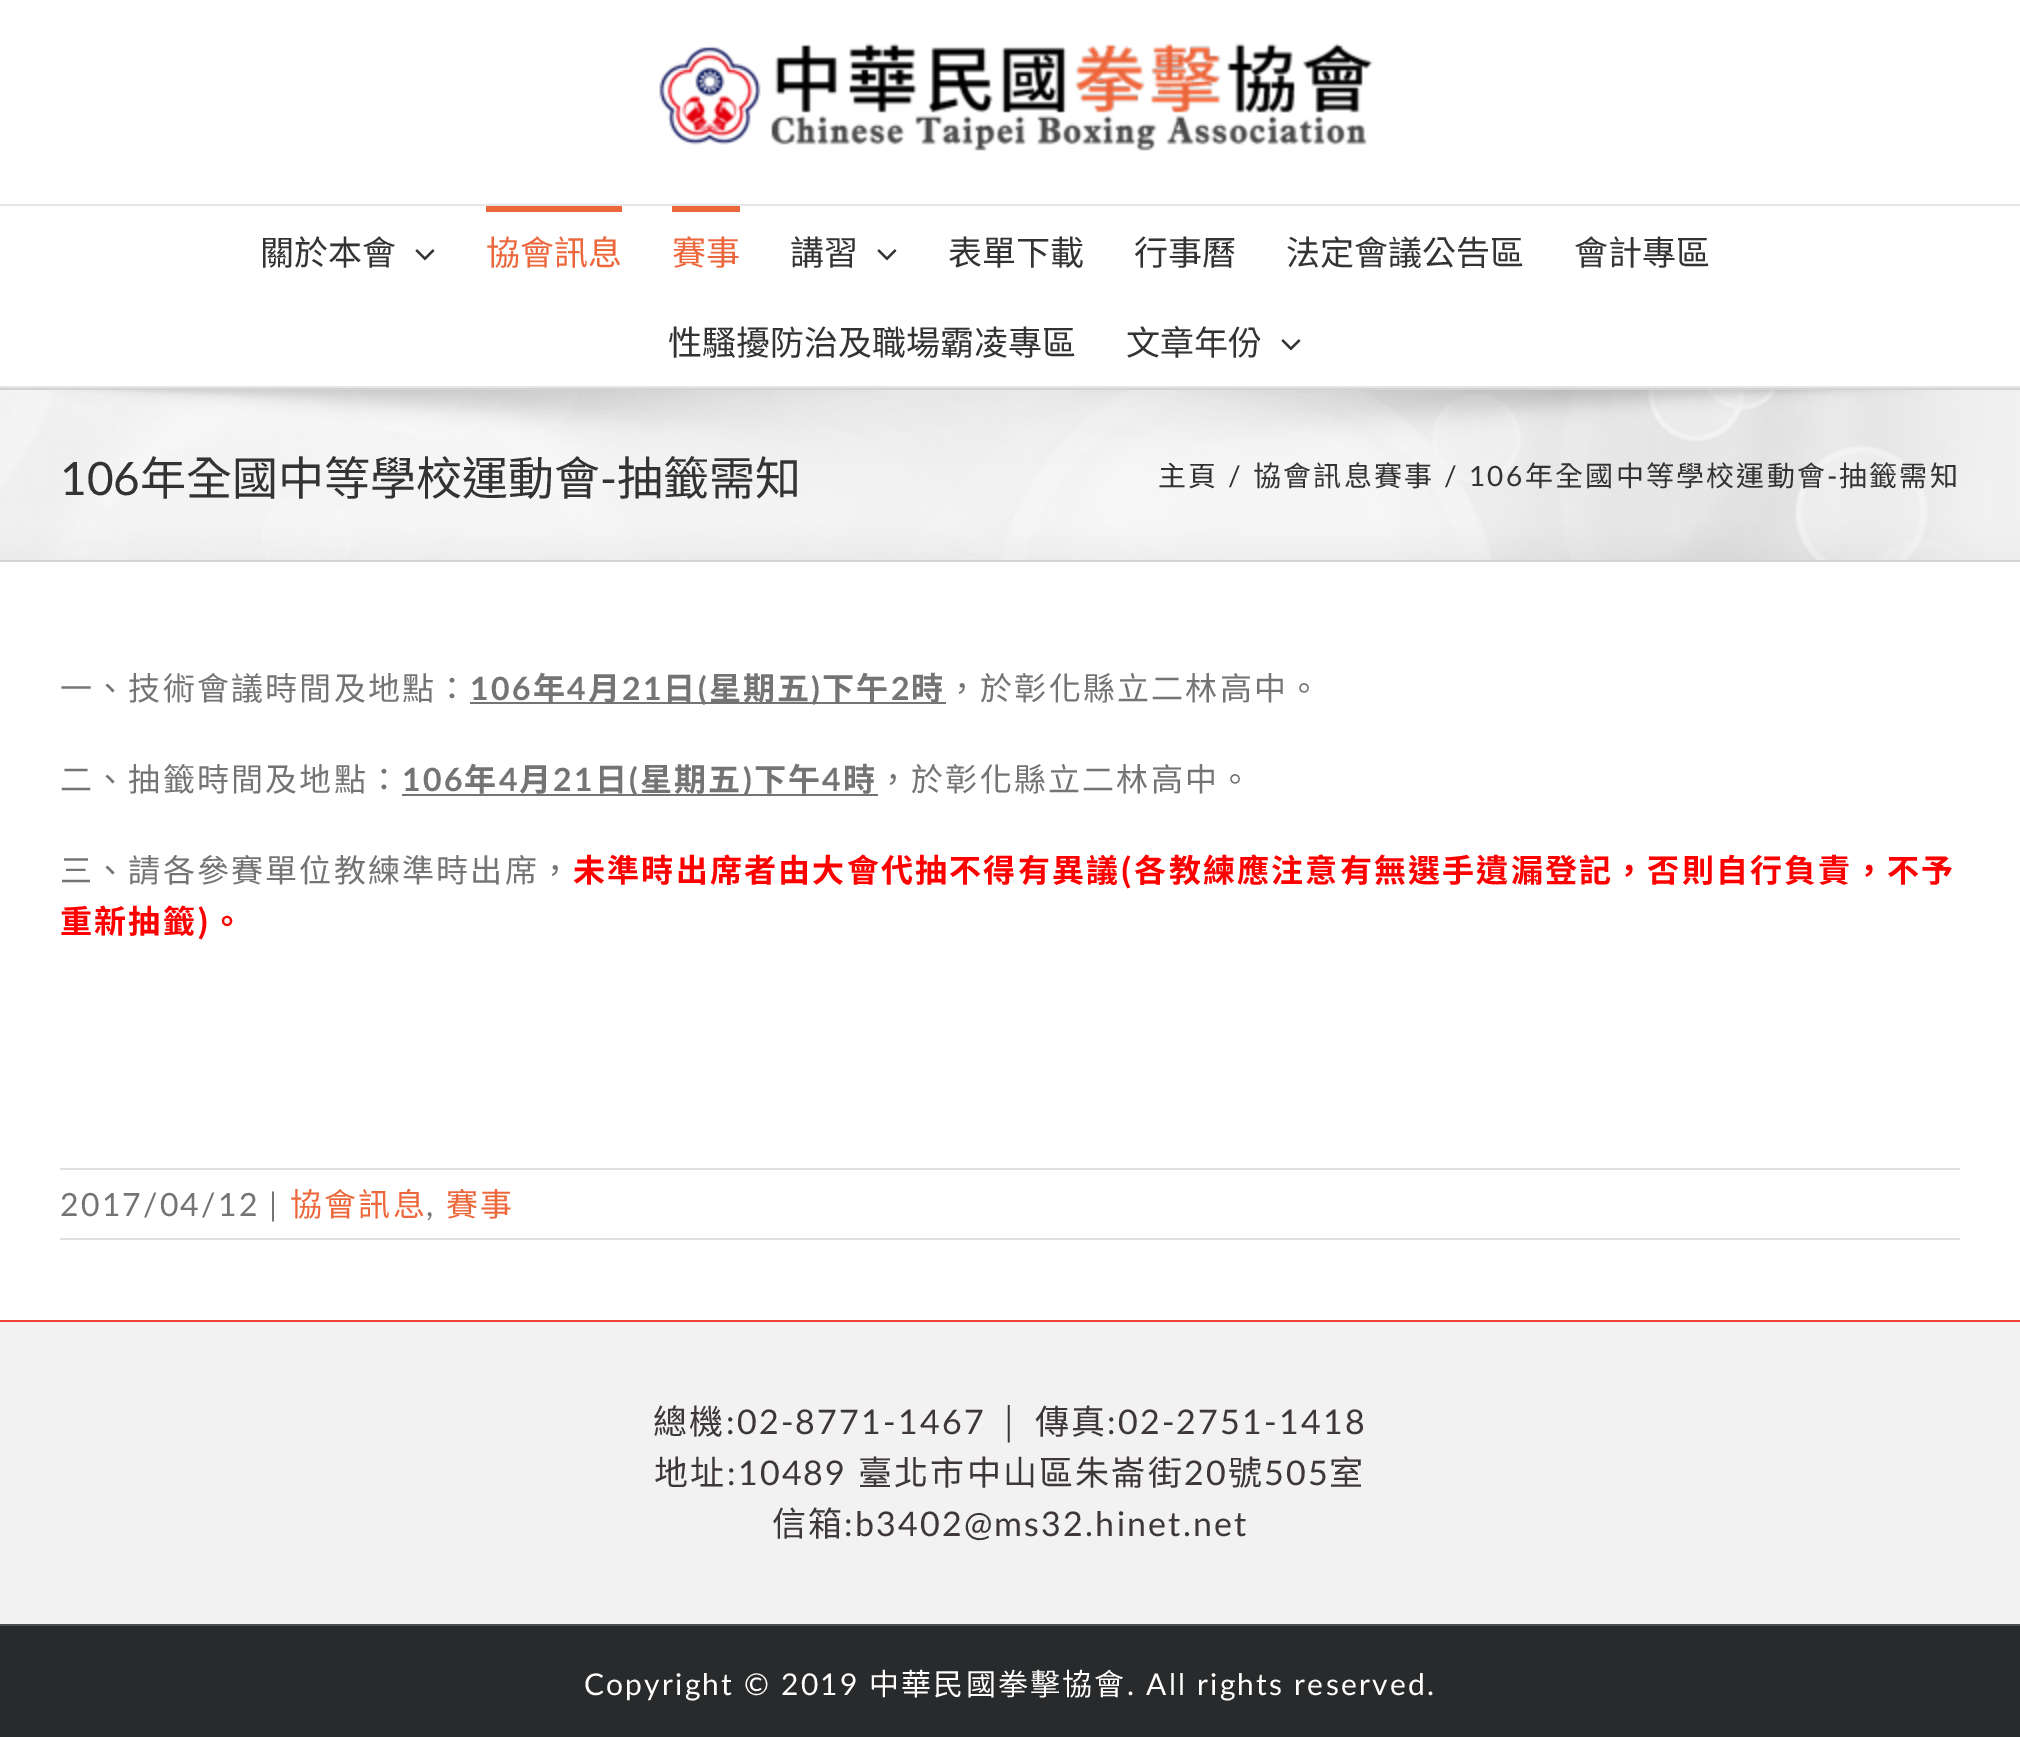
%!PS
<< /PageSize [2020 1737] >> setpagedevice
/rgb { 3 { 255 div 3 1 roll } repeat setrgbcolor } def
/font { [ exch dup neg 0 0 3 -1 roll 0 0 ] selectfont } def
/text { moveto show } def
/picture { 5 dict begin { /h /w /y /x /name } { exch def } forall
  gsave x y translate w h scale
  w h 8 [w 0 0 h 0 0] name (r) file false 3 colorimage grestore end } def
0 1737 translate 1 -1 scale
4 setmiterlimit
246 246 246 rgb
0 0 2020 1737 rectfill
255 255 255 rgb
0 0 2020 204 rectfill
229 229 229 rgb
0 204 2020 2 rectfill
(img_01.rgb) 659 43 714 108 picture
255 255 255 rgb
0 206 2020 180 rectfill
229 229 229 rgb
0 386 2020 2 rectfill
(img_02.rgb) 415 249 20 12 picture
237 103 60 rgb
486 206 136 6 rectfill
672 206 68 6 rectfill
(img_02.rgb) 877 249 20 12 picture
(img_02.rgb) 1281 339 20 12 picture
(img_03.rgb) 0 390 2020 170 picture
210 211 212 rgb
0 388 2020 2 rectfill
0 560 2020 2 rectfill
255 255 255 rgb
0 562 2020 758 rectfill
116 116 116 rgb
470 702 476 2 rectfill
402 794 476 2 rectfill
224 222 222 rgb
60 1168 1900 2 rectfill
60 1238 1900 2 rectfill
242 242 242 rgb
0 1322 2020 302 rectfill
244 67 54 rgb
0 1320 2020 2 rectfill
40 42 43 rgb
0 1626 2020 111 rectfill
75 76 77 rgb
0 1624 2020 2 rectfill
/NotoSansCJKTC-Regular 34 font
51 51 51 rgb
(關於本會) 260 265 text
237 103 60 rgb
(協會訊息) 486 265 text
(賽事) 672 265 text
51 51 51 rgb
(講習) 790 265 text
(表單下載) 948 265 text
(行事曆) 1134 265 text
(法定會議公告區) 1286 265 text
(會計專區) 1574 265 text
(性騷擾防治及職場霸凌專區) 668 355 text
(文章年份) 1126 355 text
/Lato-Regular 46 font
(106) 60 495 text
/NotoSansTC-Regular 46 font
(年全國中等學校運動會) 140 495 text
/Lato-Regular 46 font
(-) 600 495 text
/NotoSansTC-Regular 46 font
(抽籤需知) 617 495 text
/NotoSansTC-Regular 28 font
1158 486 moveto 2.2 0 (主頁) ashow
/Lato-Regular 28 font
1228 486 moveto 2.2 0 (/) ashow
/NotoSansTC-Regular 28 font
1253 486 moveto 2.2 0 (協會訊息賽事) ashow
/Lato-Regular 28 font
1444 486 moveto 2.2 0 (/) ashow
1469 486 moveto 2.2 0 (106) ashow
/NotoSansTC-Regular 28 font
1525 486 moveto 2.2 0 (年全國中等學校運動會) ashow
/Lato-Regular 28 font
1827 486 moveto 2.2 0 (-) ashow
/NotoSansTC-Regular 28 font
1839 486 moveto 2.2 0 (抽籤需知) ashow
/NotoSansTC-Regular 32 font
116 116 116 rgb
60 700 moveto 2.2 0 (一、技術會議時間及地點：) ashow
/Lato-Bold 32 font
470 700 moveto 2.2 0 (106) ashow
/NotoSansTC-Bold 32 font
533 700 moveto 2.2 0 (年) ashow
/Lato-Bold 32 font
567 700 moveto 2.2 0 (4) ashow
/NotoSansTC-Bold 32 font
588 700 moveto 2.2 0 (月) ashow
/Lato-Bold 32 font
622 700 moveto 2.2 0 (21) ashow
/NotoSansTC-Bold 32 font
663 700 moveto 2.2 0 (日) ashow
/Lato-Bold 32 font
698 700 moveto 2.2 0 (\() ashow
/NotoSansTC-Bold 32 font
709 700 moveto 2.2 0 (星期五) ashow
/Lato-Bold 32 font
811 700 moveto 2.2 0 (\)) ashow
/NotoSansTC-Bold 32 font
822 700 moveto 2.2 0 (下午) ashow
/Lato-Bold 32 font
891 700 moveto 2.2 0 (2) ashow
/NotoSansTC-Bold 32 font
911 700 moveto 2.2 0 (時) ashow
/NotoSansTC-Regular 32 font
946 700 moveto 2.2 0 (，於彰化縣立二林高中。) ashow
60 791 moveto 2.2 0 (二、抽籤時間及地點：) ashow
/Lato-Bold 32 font
402 791 moveto 2.2 0 (106) ashow
/NotoSansTC-Bold 32 font
464 791 moveto 2.2 0 (年) ashow
/Lato-Bold 32 font
499 791 moveto 2.2 0 (4) ashow
/NotoSansTC-Bold 32 font
519 791 moveto 2.2 0 (月) ashow
/Lato-Bold 32 font
553 791 moveto 2.2 0 (21) ashow
/NotoSansTC-Bold 32 font
595 791 moveto 2.2 0 (日) ashow
/Lato-Bold 32 font
629 791 moveto 2.2 0 (\() ashow
/NotoSansTC-Bold 32 font
640 791 moveto 2.2 0 (星期五) ashow
/Lato-Bold 32 font
743 791 moveto 2.2 0 (\)) ashow
/NotoSansTC-Bold 32 font
754 791 moveto 2.2 0 (下午) ashow
/Lato-Bold 32 font
822 791 moveto 2.2 0 (4) ashow
/NotoSansTC-Bold 32 font
843 791 moveto 2.2 0 (時) ashow
/NotoSansTC-Regular 32 font
877 791 moveto 2.2 0 (，於彰化縣立二林高中。) ashow
60 882 moveto 2.2 0 (三、請各參賽單位教練準時出席，) ashow
/NotoSansTC-Bold 32 font
255 0 0 rgb
573 882 moveto 2.2 0 (未準時出席者由大會代抽不得有異議\(各教練應注意有無選手遺漏登記，否則自行負責，不予) ashow
60 933 moveto 2.2 0 (重新抽籤\)。) ashow
/Lato-Regular 32 font
116 116 116 rgb
60 1216 moveto 2.2 0 (2017/04/12) ashow
269 1216 moveto 2.2 0 (|) ashow
/NotoSansTC-Regular 32 font
237 103 60 rgb
290 1216 moveto 2.2 0 (協會訊息) ashow
/Lato-Regular 32 font
116 116 116 rgb
426 1216 moveto 2.2 0 (,) ashow
/NotoSansTC-Regular 32 font
237 103 60 rgb
446 1216 moveto 2.2 0 (賽事) ashow
/NotoSansTC-Regular 34 font
61 55 55 rgb
653 1434 moveto 2.2 0 (總機) ashow
/Lato-Regular 34 font
726 1434 moveto 2.2 0 (:02-8771-1467 │) ashow
/NotoSansTC-Regular 34 font
1035 1434 moveto 2.2 0 (傳真) ashow
/Lato-Regular 34 font
1107 1434 moveto 2.2 0 (:02-2751-1418) ashow
/NotoSansTC-Regular 34 font
654 1485 moveto 2.2 0 (地址) ashow
/Lato-Regular 34 font
727 1485 moveto 2.2 0 (:10489) ashow
/NotoSansTC-Regular 34 font
858 1485 moveto 2.2 0 (臺北市中山區朱崙街) ashow
/Lato-Regular 34 font
1184 1485 moveto 2.2 0 (20) ashow
/NotoSansTC-Regular 34 font
1228 1485 moveto 2.2 0 (號) ashow
/Lato-Regular 34 font
1264 1485 moveto 2.2 0 (505) ashow
/NotoSansTC-Regular 34 font
1329 1485 moveto 2.2 0 (室) ashow
772 1536 moveto 2.2 0 (信箱) ashow
/Lato-Regular 34 font
844 1536 moveto 2.2 0 (:b3402@ms32.hinet.net) ashow
/Lato-Regular 30 font
255 255 255 rgb
584 1695 moveto 2.2 0 (Copyright © 2019) ashow
/NotoSansTC-Regular 30 font
869 1695 moveto 2.2 0 (中華民國拳擊協會) ashow
/Lato-Regular 30 font
1127 1695 moveto 2.2 0 (. All rights reserved.) ashow
showpage
